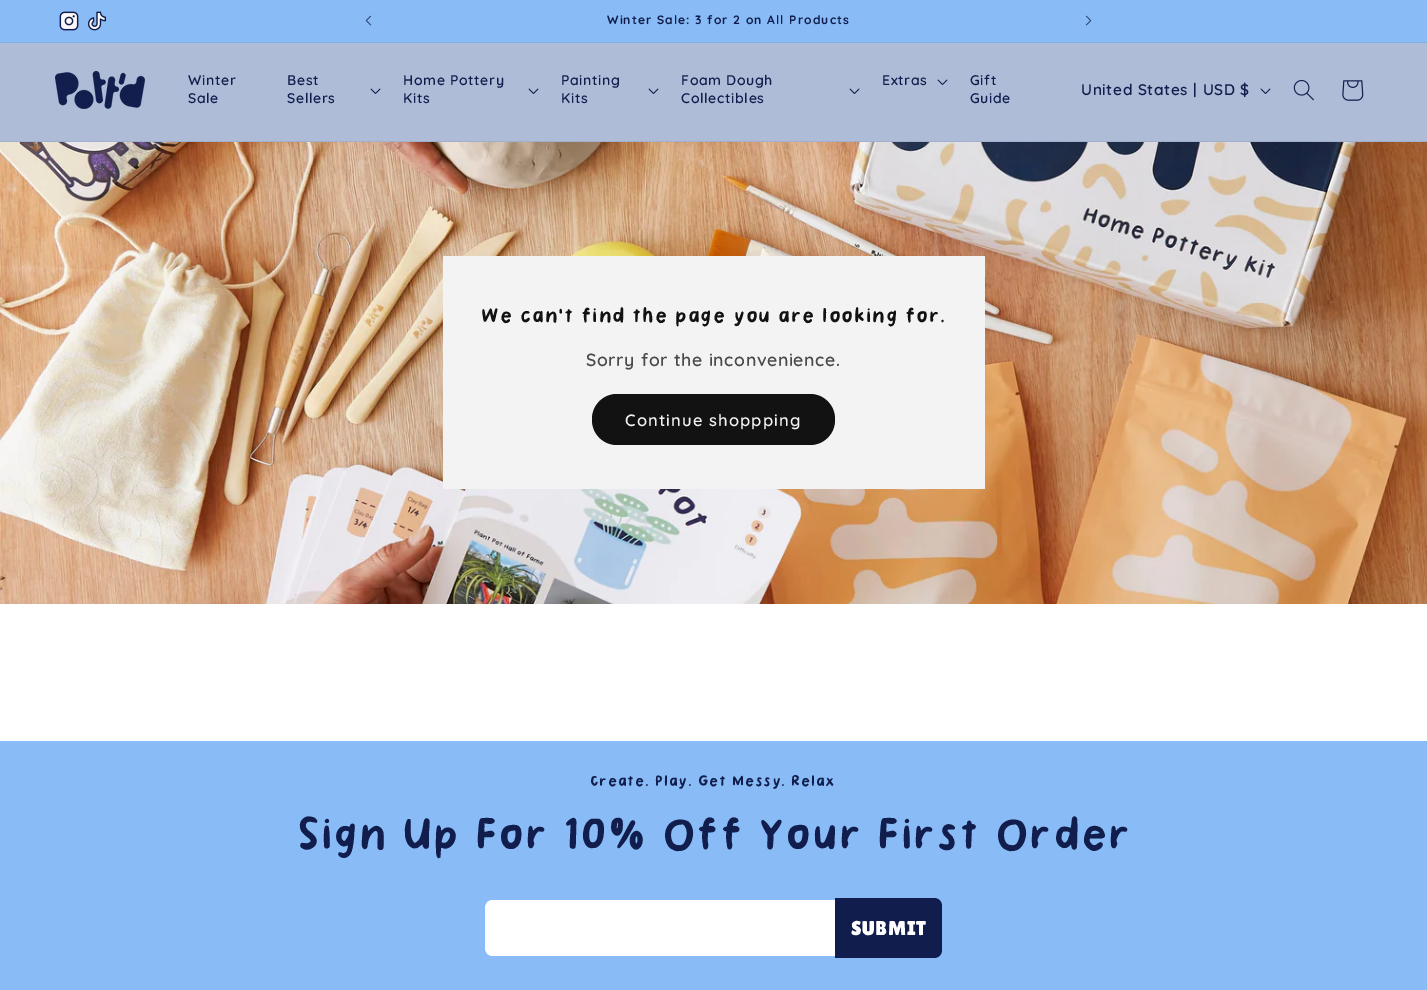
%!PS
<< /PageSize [1427 990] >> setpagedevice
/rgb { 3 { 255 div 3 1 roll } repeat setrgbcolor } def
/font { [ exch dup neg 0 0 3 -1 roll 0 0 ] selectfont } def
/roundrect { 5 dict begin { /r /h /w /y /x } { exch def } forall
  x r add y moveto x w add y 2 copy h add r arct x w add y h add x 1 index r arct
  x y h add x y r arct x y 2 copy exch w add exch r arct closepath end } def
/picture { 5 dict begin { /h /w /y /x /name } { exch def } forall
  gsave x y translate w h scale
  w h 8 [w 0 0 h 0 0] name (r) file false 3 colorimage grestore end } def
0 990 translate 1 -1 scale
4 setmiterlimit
255 255 255 rgb
0 0 1427 990 rectfill
137 188 246 rgb
0 0 1427 42 rectfill
127 175 232 rgb
0 42 1427 1 rectfill
(img_01.rgb) 59 11 20 20 picture
(img_02.rgb) 87 11 20 20 picture
(img_03.rgb) 365 15 7 11 picture
(img_04.rgb) 1085 15 7 11 picture
174 188 216 rgb
0 43 1427 98 rectfill
161 175 205 rgb
0 141 1427 1 rectfill
(img_05.rgb) 55 71 90 38 picture
(img_06.rgb) 370 88 11 6 picture
(img_06.rgb) 528 88 11 6 picture
(img_06.rgb) 648 88 11 6 picture
(img_06.rgb) 849 88 11 6 picture
(img_06.rgb) 937 79 11 6 picture
(img_06.rgb) 1260 88 11 6 picture
(img_07.rgb) 1293 79 21 22 picture
(img_08.rgb) 1342 80 22 21 picture
(img_09.rgb) 0 142 1427 462 picture
243 243 243 rgb
443 256 542 233 rectfill
18 18 18 rgb
592 394 243 51 25 roundrect fill
137 188 246 rgb
0 741 1427 249 rectfill
255 255 255 rgb
493 900 moveto 342 0 rlineto 0 56 rlineto -342 0 rlineto -4.5 0 -8 -3.5 -8 -8 rcurveto 0 -40 rlineto 0 -4.5 3.5 -8 8 -8 rcurveto closepath fill
17 30 77 rgb
835 898 moveto 99 0 rlineto 4.5 0 8 3.5 8 8 rcurveto 0 44 rlineto 0 4.5 -3.5 8 -8 8 rcurveto -99 0 rlineto closepath fill
/Quicksand-Bold 12.1 font
607 24 moveto 1.1 0 (Winter Sale: 3 for 2 on All Products) ashow
/Quicksand-SemiBold 14 font
188 85 moveto 0.65 0 (Winter) ashow
188 103 moveto 0.65 0 (Sale) ashow
287 85 moveto 0.65 0 (Best) ashow
287 103 moveto 0.65 0 (Sellers) ashow
403 85 moveto 0.65 0 (Home Pottery) ashow
403 103 moveto 0.65 0 (Kits) ashow
561 85 moveto 0.65 0 (Painting) ashow
561 103 moveto 0.65 0 (Kits) ashow
681 85 moveto 0.65 0 (Foam Dough) ashow
681 103 moveto 0.65 0 (Collectibles) ashow
882 85 moveto 0.65 0 (Extras) ashow
970 85 moveto 0.65 0 (Gift) ashow
970 103 moveto 0.65 0 (Guide) ashow
/Quicksand-SemiBold 15.4 font
1081 95 moveto 0.65 0 (United States | USD $) ashow
/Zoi-Regular 26.4 font
18 18 18 rgb
481 325 moveto 0.65 0 (We can't find the page you are looking for.) ashow
/Quicksand-SemiBold 17.6 font
74 74 74 rgb
586 366 moveto 0.65 0 (Sorry for the inconvenience.) ashow
/Quicksand-SemiBold 16.5 font
243 243 243 rgb
625 426 moveto 1.1 0 (Continue shoppping) ashow
/Zoi-Regular 19.75 font
17 30 77 rgb
590 788 moveto 0.65 0 (Create. Play. Get Messy. Relax) ashow
/Zoi-Regular 57.25 font
297 855 moveto 0.65 0 (Sign Up For 10% Off Your First Order) ashow
/LilitaOne-Regular 20 font
255 255 255 rgb
851 935 moveto 0.65 0 (SUBMIT) ashow
showpage
